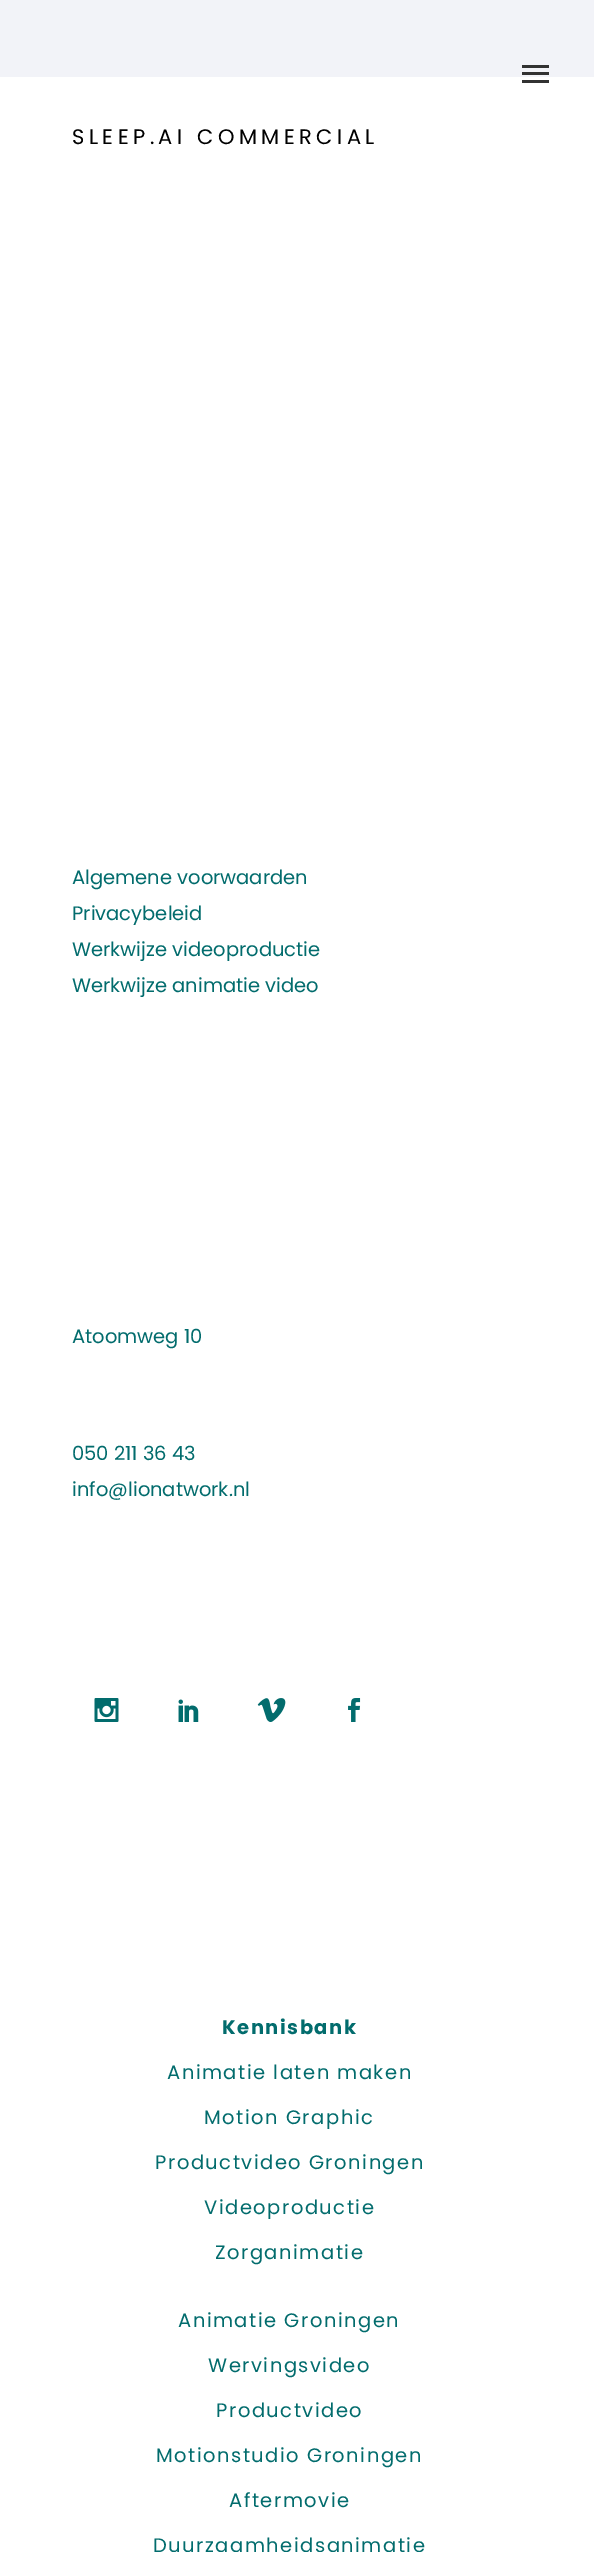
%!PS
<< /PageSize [594 2552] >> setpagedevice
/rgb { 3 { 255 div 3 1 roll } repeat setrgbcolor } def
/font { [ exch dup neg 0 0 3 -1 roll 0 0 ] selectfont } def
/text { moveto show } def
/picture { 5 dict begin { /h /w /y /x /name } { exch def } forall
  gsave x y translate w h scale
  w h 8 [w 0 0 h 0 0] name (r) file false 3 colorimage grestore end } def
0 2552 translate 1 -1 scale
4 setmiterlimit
255 255 255 rgb
0 0 594 2552 rectfill
242 243 248 rgb
0 0 594 77 rectfill
50 50 50 rgb
522 65 27 3 rectfill
522 72 27 3 rectfill
522 80 27 3 rectfill
(img_01.rgb) 94 1698 25 24 picture
(img_02.rgb) 178 1699 21 23 picture
(img_03.rgb) 257 1698 29 24 picture
(img_04.rgb) 348 1698 13 24 picture
/Poppins-Regular 21 font
0 0 0 rgb
72 144 moveto 4.5 0 (SLEEP.AI COMMERCIAL) ashow
/Poppins-Regular 19.5 font
2 108 109 rgb
(Algemene voorwaarden) 72 884 text
(Privacybeleid) 72 920 text
(Werkwijze videoproductie) 72 956 text
(Werkwijze animatie video) 72 992 text
(Atoomweg 10) 72 1343 text
(050 211 36 43) 72 1460 text
(info@lionatwork.nl) 72 1496 text
/Poppins-Bold 19.5 font
222 2034 moveto 1.5 0 (Kennisbank) ashow
/Poppins-Regular 19.5 font
167 2079 moveto 1.5 0 (Animatie laten maken) ashow
204 2124 moveto 1.5 0 (Motion Graphic) ashow
155 2169 moveto 1.5 0 (Productvideo Groningen) ashow
204 2214 moveto 1.5 0 (Videoproductie) ashow
215 2259 moveto 1.5 0 (Zorganimatie) ashow
178 2327 moveto 1.5 0 (Animatie Groningen) ashow
208 2372 moveto 1.5 0 (Wervingsvideo) ashow
216 2417 moveto 1.5 0 (Productvideo) ashow
156 2462 moveto 1.5 0 (Motionstudio Groningen) ashow
229 2507 moveto 1.5 0 (Aftermovie) ashow
153 2552 moveto 1.5 0 (Duurzaamheidsanimatie) ashow
showpage
